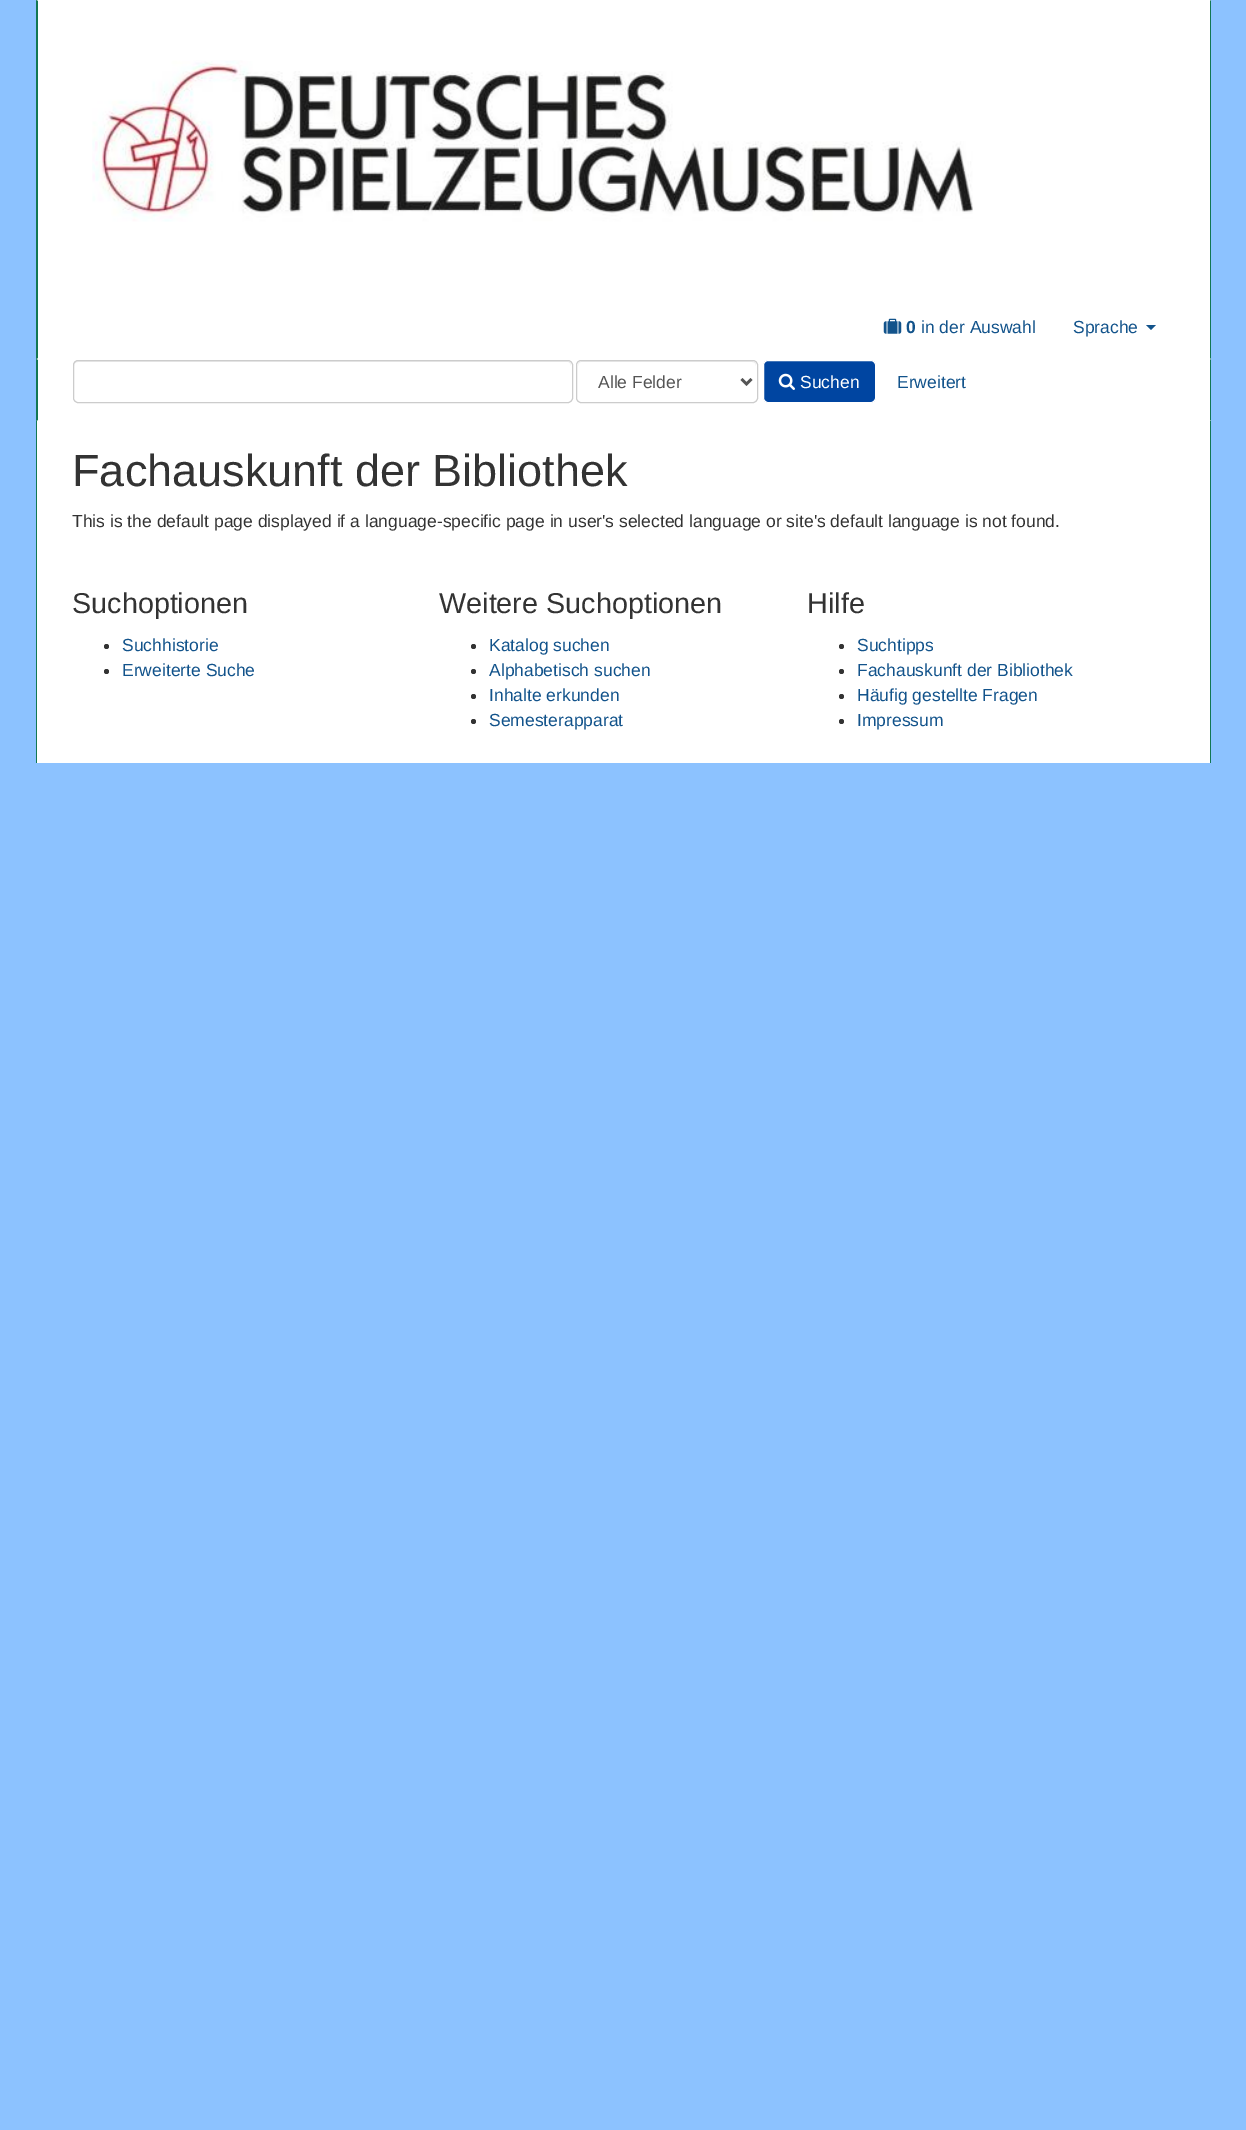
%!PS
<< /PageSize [1246 2130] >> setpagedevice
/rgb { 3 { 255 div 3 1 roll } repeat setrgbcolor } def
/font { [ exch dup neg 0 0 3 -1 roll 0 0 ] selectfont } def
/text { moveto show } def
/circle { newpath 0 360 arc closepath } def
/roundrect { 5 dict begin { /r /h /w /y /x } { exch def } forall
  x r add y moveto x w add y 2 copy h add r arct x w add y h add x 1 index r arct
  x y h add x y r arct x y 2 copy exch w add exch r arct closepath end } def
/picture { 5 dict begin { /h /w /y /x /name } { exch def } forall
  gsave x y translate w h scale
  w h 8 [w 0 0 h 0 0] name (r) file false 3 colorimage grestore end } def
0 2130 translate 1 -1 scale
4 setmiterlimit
140 194 255 rgb
0 0 1246 2130 rectfill
255 255 255 rgb
36 0 1175 421 rectfill
19 119 82 rgb
1211 0 moveto 0 359 rlineto -1 -1 rlineto 0 -357 rlineto closepath fill
36 359 moveto 0 -359 rlineto 2 1 rlineto 0 357 rlineto closepath fill
(img_01.rgb) 92 60 881 162 picture
(img_02.rgb) 883 318 19 16 picture
18 83 139 rgb
1146 325 moveto 10 0 rlineto -5 5 rlineto closepath fill
19 119 82 rgb
1211 359 moveto 0 62 rlineto -1 -1 rlineto 0 -60 rlineto closepath fill
36 421 moveto 0 -62 rlineto 2 1 rlineto 0 60 rlineto closepath fill
236 236 236 rgb
78 362 moveto 490 0 rlineto 2 0 3 2 3 4 rcurveto 0 -3 -1 -5 -4 -5 rcurveto -489 0 rlineto -3 0 -4 2 -4 5 rcurveto 0 -2 1 -4 4 -4 rcurveto closepath fill
204 204 204 rgb
73.5 360.5 499 42 4.5 roundrect stroke
236 236 236 rgb
581 362 moveto 171 0 rlineto 3 0 4 2 4 4 rcurveto 0 -1 rlineto 0 -2 -2 -4 -4 -4 rcurveto -170 0 rlineto -2 0 -4 2 -4 4 rcurveto 0 1 rlineto 0 -2 1 -4 3 -4 rcurveto closepath fill
204 204 204 rgb
576.5 360.5 181 42 4.5 roundrect stroke
85 85 85 rgb
2.5 setlinewidth
741.5 379 moveto 5 5 rlineto 5 -5 rlineto stroke
0 69 161 rgb
763.5 360.5 112 42 4.5 roundrect gsave fill grestore
255 255 255 rgb
1 setlinewidth
stroke
(img_03.rgb) 778 373 17 17 picture
37 421 1173 342 rectfill
19 119 82 rgb
1210 421 1 342 rectfill
36 421 1 342 rectfill
51 51 51 rgb
106.5 646.5 2.5 circle fill
106.5 671.5 2.5 circle fill
473.5 646.5 2.5 circle fill
473.5 671.5 2.5 circle fill
473.5 696.5 2.5 circle fill
473.5 721.5 2.5 circle fill
841.5 646.5 2.5 circle fill
841.5 671.5 2.5 circle fill
841.5 696.5 2.5 circle fill
841.5 721.5 2.5 circle fill
/LiberationSans-Bold 17.5 font
18 83 139 rgb
(0) 906 333 text
/LiberationSans-Regular 17.5 font
(in der Auswahl) 921 333 text
(Sprache) 1073 333 text
85 85 85 rgb
(Alle Felder) 598 388 text
255 255 255 rgb
(Suchen) 800 388 text
18 83 139 rgb
(Erweitert) 897 388 text
/LiberationSans-Regular 45 font
51 51 51 rgb
(Fachauskunft der Bibliothek) 72 486 text
/LiberationSans-Regular 17.5 font
(This is the default page displayed if a language-specific page in user's selected language or site's default language is not found.) 72 527 text
/LiberationSans-Regular 28.75 font
(Suchoptionen) 72 613 text
/LiberationSans-Regular 17.5 font
18 83 139 rgb
(Suchhistorie) 122 651 text
(Erweiterte Suche) 122 676 text
/LiberationSans-Regular 28.75 font
51 51 51 rgb
(Weitere Suchoptionen) 439 613 text
/LiberationSans-Regular 17.5 font
18 83 139 rgb
(Katalog suchen) 489 651 text
(Alphabetisch suchen) 489 676 text
(Inhalte erkunden) 489 701 text
(Semesterapparat) 489 726 text
/LiberationSans-Regular 28.75 font
51 51 51 rgb
(Hilfe) 807 613 text
/LiberationSans-Regular 17.5 font
18 83 139 rgb
(Suchtipps) 857 651 text
(Fachauskunft der Bibliothek) 857 676 text
(Häufig gestellte Fragen) 857 701 text
(Impressum) 857 726 text
showpage
